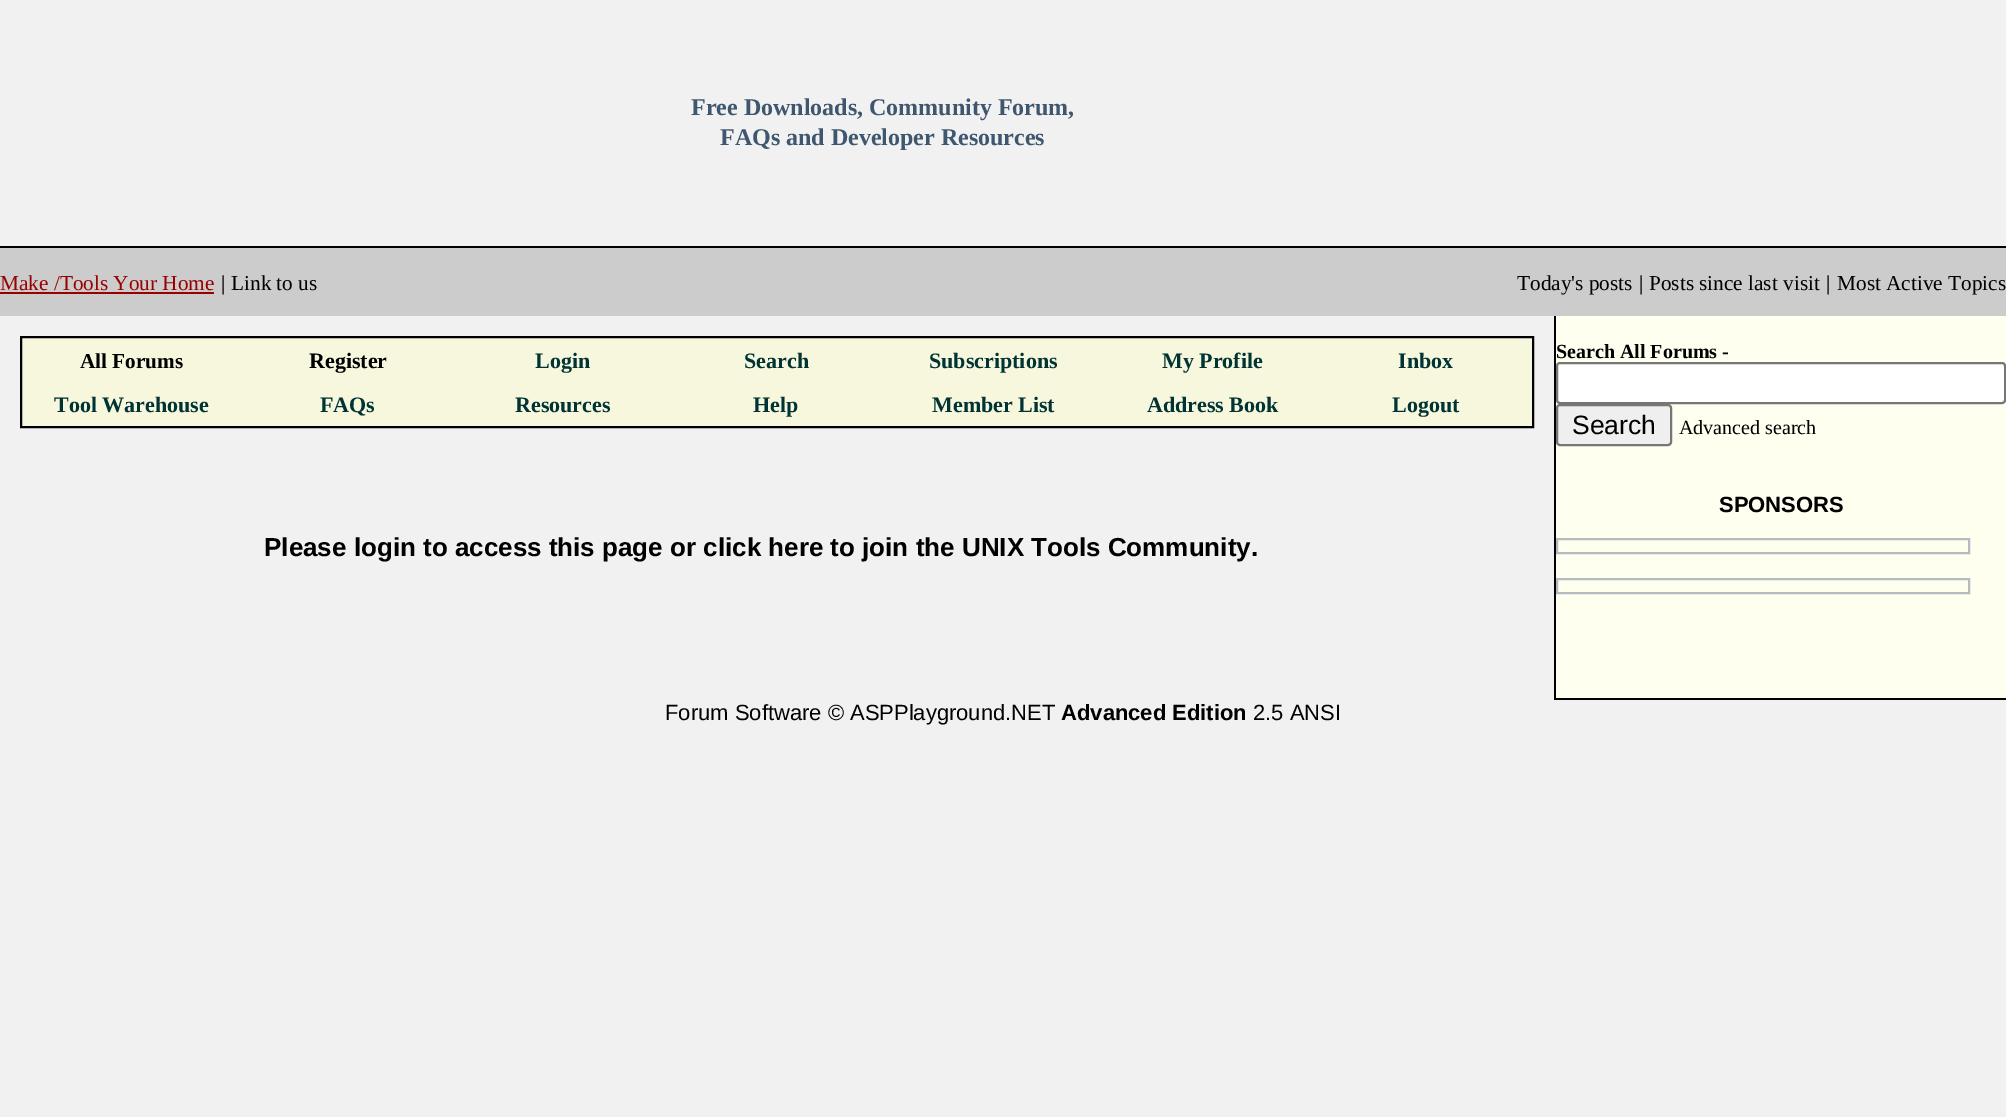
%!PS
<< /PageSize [2006 1117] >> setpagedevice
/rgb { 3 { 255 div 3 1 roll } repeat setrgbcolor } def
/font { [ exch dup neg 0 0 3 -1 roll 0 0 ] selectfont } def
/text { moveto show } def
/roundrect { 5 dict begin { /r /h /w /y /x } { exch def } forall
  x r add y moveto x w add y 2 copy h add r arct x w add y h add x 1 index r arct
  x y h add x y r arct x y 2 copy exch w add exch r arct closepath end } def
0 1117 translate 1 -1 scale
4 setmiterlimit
241 241 241 rgb
0 0 2006 1117 rectfill
0 0 0 rgb
0 246 2006 2 rectfill
204 204 204 rgb
0 248 2006 68 rectfill
153 0 0 rgb
0 292 214 2 rectfill
247 247 222 rgb
21 337 moveto 1512 0 rlineto 0 90 rlineto -1512 0 rlineto closepath gsave fill grestore
0 0 0 rgb
2 setlinewidth
stroke
255 255 240 rgb
1556 316 450 382 rectfill
0 0 0 rgb
1554 698 452 2 rectfill
1554 316 2 384 rectfill
255 255 255 rgb
1557 363 448 40 3 roundrect gsave fill grestore
118 118 118 rgb
stroke
239 239 239 rgb
1557 405 114 40 3 roundrect gsave fill grestore
118 118 118 rgb
stroke
181 186 192 rgb
1557 539 412 14 rectstroke
1557 579 412 14 rectstroke
/LiberationSerif-Bold 24 font
62 86 110 rgb
(Free Downloads, Community Forum,) 691 115 text
(FAQs and Developer Resources) 720 145 text
/LiberationSerif-Regular 21.25 font
153 0 0 rgb
(Make /Tools Your Home) 0 290 text
0 0 0 rgb
(|) 221 290 text
(Link to us) 231 290 text
(Today's posts) 1517 290 text
(|) 1639 290 text
(Posts since last visit) 1649 290 text
(|) 1826 290 text
(Most Active Topics) 1837 290 text
/LiberationSerif-Bold 21.25 font
(All Forums) 80 368 text
/LiberationSerif-Bold 22 font
(Register) 309 368 text
0 51 51 rgb
(Login) 535 368 text
(Search) 744 368 text
(Subscriptions) 929 368 text
(My Profile) 1162 368 text
(Inbox) 1398 368 text
(Tool Warehouse) 54 412 text
(FAQs) 320 412 text
(Resources) 515 412 text
(Help) 753 412 text
(Member List) 932 412 text
(Address Book) 1147 412 text
(Logout) 1392 412 text
/LiberationSans-Bold 26 font
0 0 0 rgb
(Please login to access this page or click here to join the UNIX Tools Community.) 264 556 text
/LiberationSerif-Bold 20 font
(Search All Forums -) 1556 358 text
/LiberationSans-Regular 26.5 font
(Search) 1572 434 text
/LiberationSerif-Regular 20 font
(Advanced search) 1679 434 text
/LiberationSans-Bold 22 font
(SPONSORS) 1719 512 text
/LiberationSans-Regular 22 font
(Forum Software © ASPPlayground.NET) 665 720 text
/LiberationSans-Bold 22 font
(Advanced Edition) 1061 720 text
/LiberationSans-Regular 22 font
(2.5 ANSI) 1253 720 text
showpage
